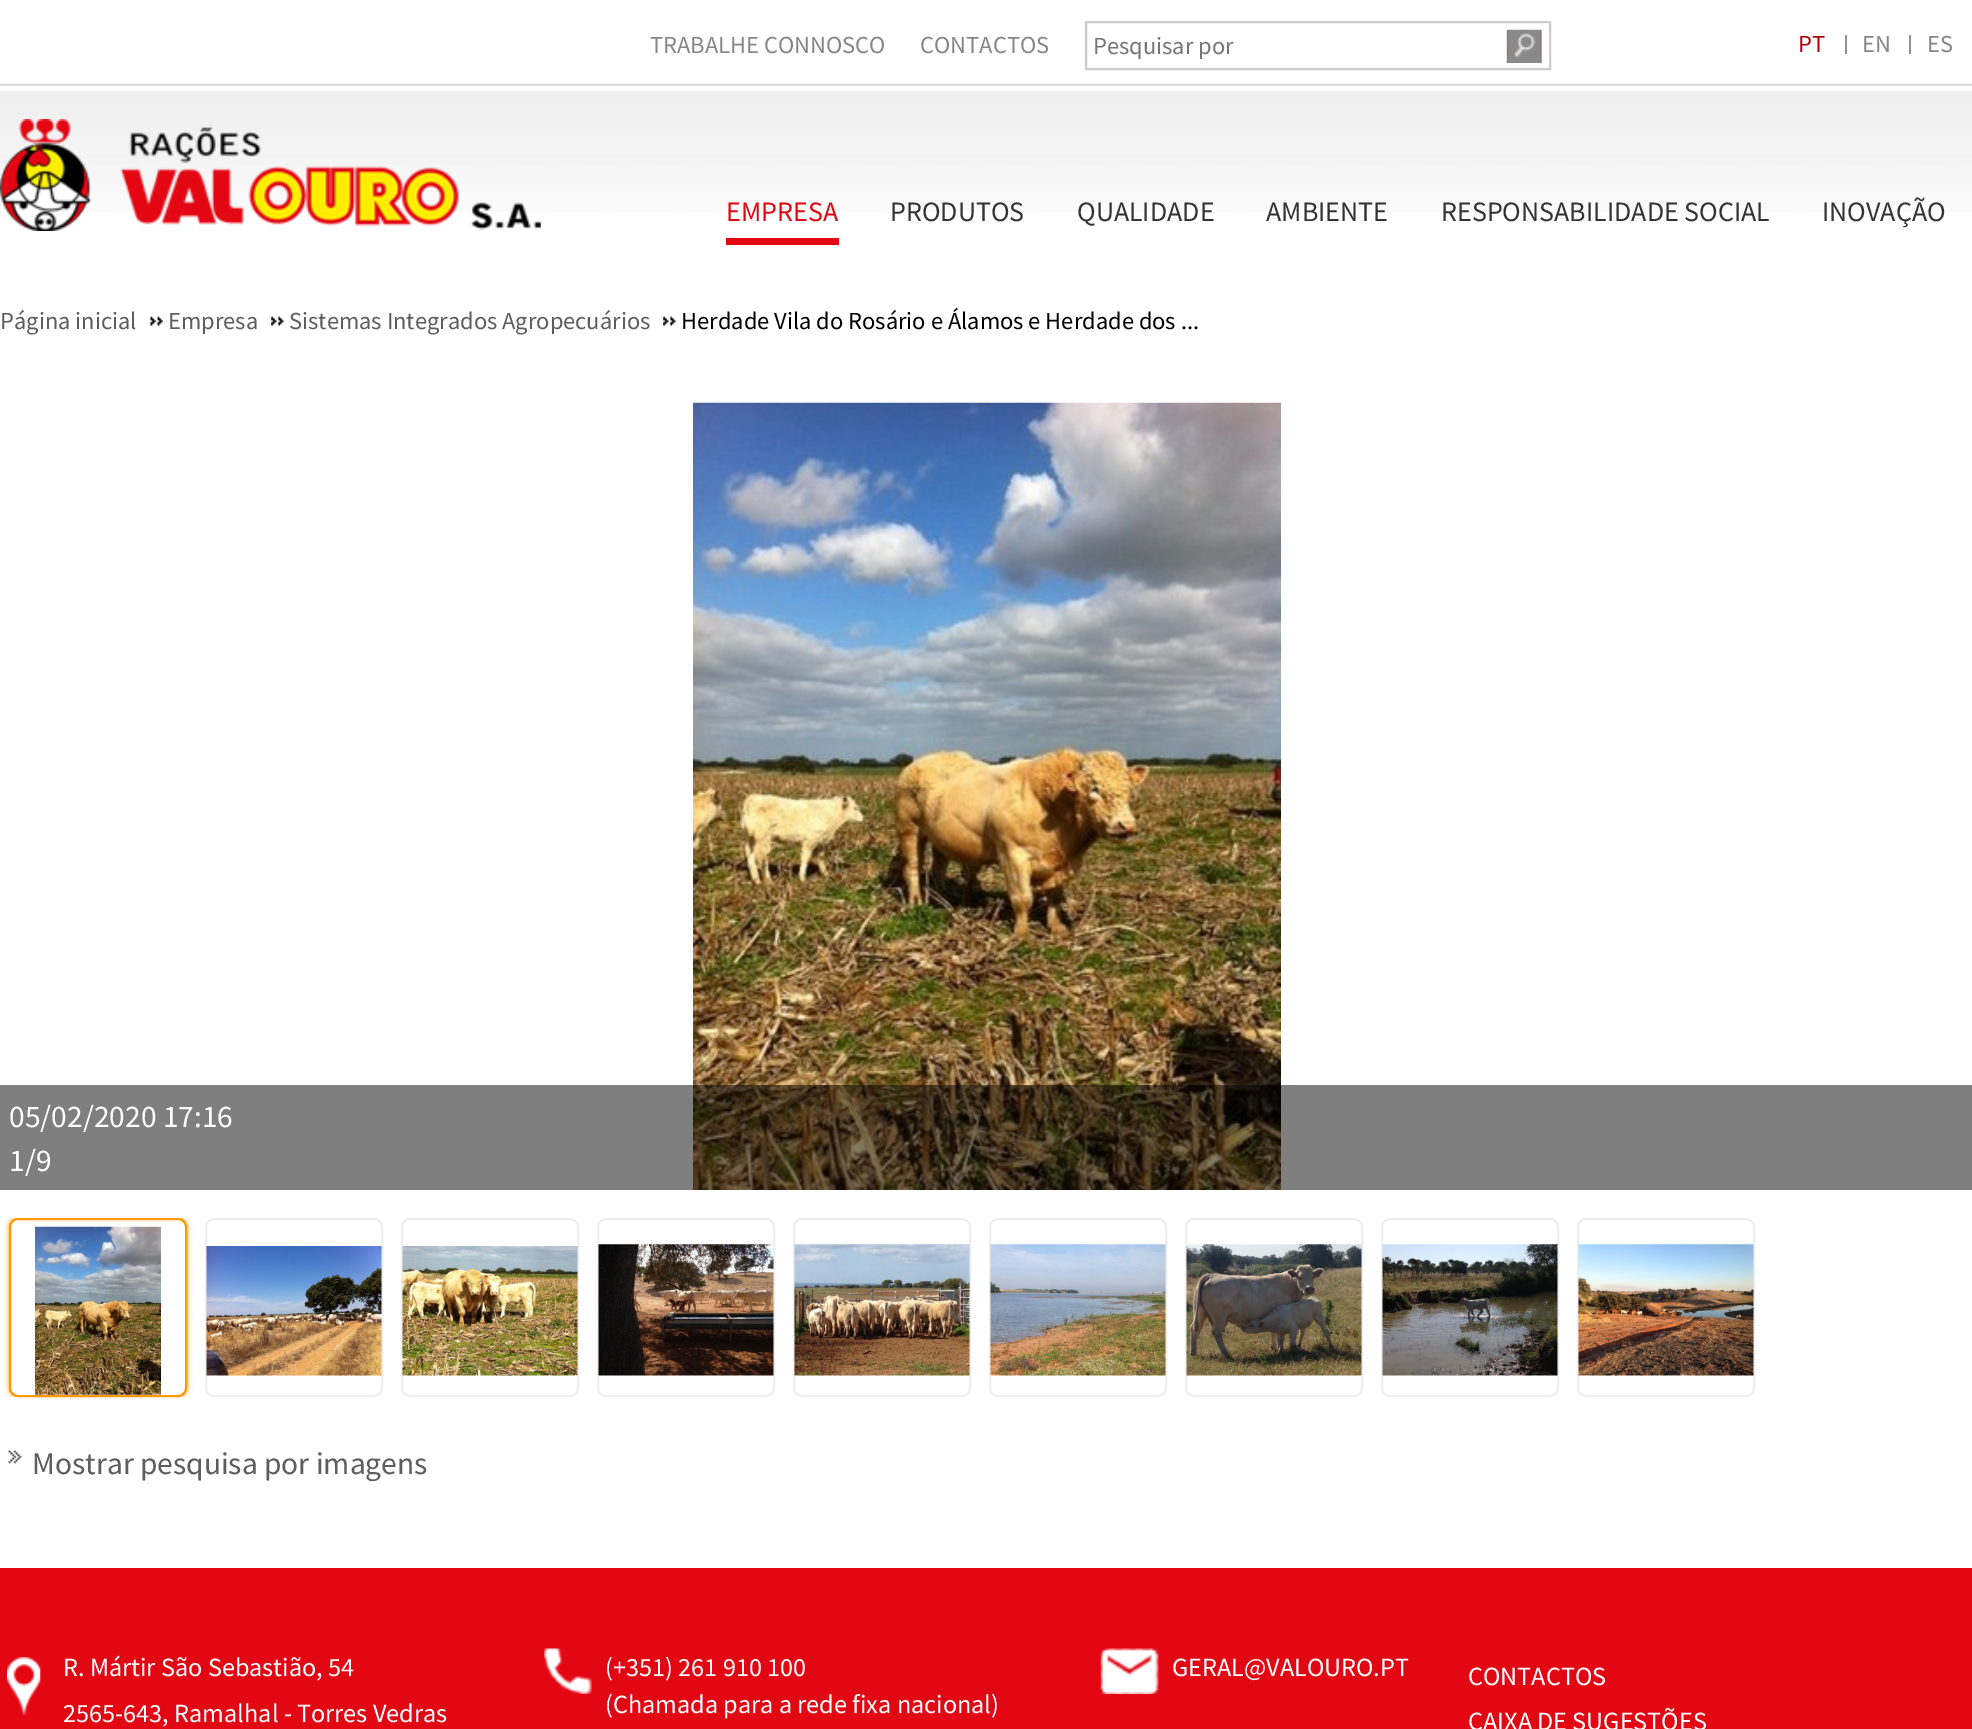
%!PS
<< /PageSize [1972 1729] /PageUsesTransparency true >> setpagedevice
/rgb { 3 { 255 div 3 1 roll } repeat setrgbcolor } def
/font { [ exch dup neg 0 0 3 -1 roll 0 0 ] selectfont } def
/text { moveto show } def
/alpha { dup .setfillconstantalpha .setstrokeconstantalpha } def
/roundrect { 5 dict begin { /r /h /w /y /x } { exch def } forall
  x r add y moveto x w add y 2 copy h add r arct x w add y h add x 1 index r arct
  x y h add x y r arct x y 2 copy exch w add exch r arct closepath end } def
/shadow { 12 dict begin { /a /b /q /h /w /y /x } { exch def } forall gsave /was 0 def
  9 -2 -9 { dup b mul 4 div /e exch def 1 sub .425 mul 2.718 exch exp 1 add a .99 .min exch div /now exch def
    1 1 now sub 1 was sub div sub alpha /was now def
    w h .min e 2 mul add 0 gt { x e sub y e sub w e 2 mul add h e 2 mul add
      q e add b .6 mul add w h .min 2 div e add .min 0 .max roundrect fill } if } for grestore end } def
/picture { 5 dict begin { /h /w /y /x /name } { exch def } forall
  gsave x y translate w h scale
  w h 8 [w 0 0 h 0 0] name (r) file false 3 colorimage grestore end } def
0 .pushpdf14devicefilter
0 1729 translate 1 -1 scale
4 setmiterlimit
255 255 255 rgb
0 0 1972 1729 rectfill
204 204 204 rgb
2 setlinewidth
1086 22 464 47 rectstroke
(img_01.rgb) 1506 29 36 34 picture
144 144 144 rgb
1845 35 2 19 rectfill
1909 35 2 19 rectfill
(img_02.rgb) 0 84 1972 128 picture
(img_03.rgb) 0 119 541 112 picture
227 6 19 rgb
726 238 113 7 rectfill
(img_04.rgb) 150 316 13 10 picture
(img_05.rgb) 271 316 13 10 picture
(img_05.rgb) 663 316 13 10 picture
(img_06.rgb) 693 402 588 788 picture
0.5 alpha
0 0 0 rgb
0 1085 1972 105 rectfill
gsave
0 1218 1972 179 rectclip
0 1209 moveto 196 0 rlineto 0 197 rlineto -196 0 rlineto closepath 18 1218 moveto 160 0 rlineto 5 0 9 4 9 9 rcurveto 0 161 rlineto 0 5 -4 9 -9 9 rcurveto -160 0 rlineto -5 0 -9 -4 -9 -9 rcurveto 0 -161 rlineto 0 -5 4 -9 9 -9 rcurveto closepath eoclip newpath
1 alpha
255 153 0 rgb
9 1218 178 179 9 2.5 1 shadow
grestore
1 alpha
255 153 0 rgb
10 1219 176 177 8 roundrect stroke
(img_07.rgb) 35 1226 126 169 picture
238 238 238 rgb
206 1219 176 177 8 roundrect stroke
(img_08.rgb) 206 1246 176 130 picture
402 1219 176 177 8 roundrect stroke
(img_09.rgb) 402 1246 176 130 picture
598 1219 176 177 8 roundrect stroke
(img_10.rgb) 598 1244 176 132 picture
794 1219 176 177 8 roundrect stroke
(img_11.rgb) 794 1244 176 132 picture
990 1219 176 177 8 roundrect stroke
(img_12.rgb) 990 1244 176 132 picture
1186 1219 176 177 8 roundrect stroke
(img_13.rgb) 1186 1244 176 132 picture
1382 1219 176 177 8 roundrect stroke
(img_14.rgb) 1382 1244 176 132 picture
1578 1219 176 177 8 roundrect stroke
(img_15.rgb) 1578 1244 176 132 picture
(img_16.rgb) 8 1450 14 14 picture
227 6 19 rgb
0 1568 1972 161 rectfill
(img_17.rgb) 7 1657 34 58 picture
(img_18.rgb) 544 1648 48 46 picture
(img_19.rgb) 1100 1648 59 46 picture
/SourceSansPro-Regular 24.5 font
134 134 134 rgb
(TRABALHE CONNOSCO) 650 53 text
(CONTACTOS) 920 53 text
117 117 117 rgb
(Pesquisar por) 1093 54 text
174 0 10 rgb
(PT) 1798 52 text
134 134 134 rgb
(EN) 1862 52 text
(ES) 1927 52 text
/SourceSansPro-Regular 28 font
227 6 19 rgb
(EMPRESA) 726 221 text
51 51 51 rgb
(PRODUTOS) 890 221 text
(QUALIDADE) 1077 221 text
(AMBIENTE) 1266 221 text
(RESPONSABILIDADE SOCIAL) 1441 221 text
(INOVAÇÃO) 1822 221 text
/SourceSansPro-Regular 24.5 font
93 93 93 rgb
(Página inicial) 0 329 text
(Empresa) 168 329 text
(Sistemas Integrados Agropecuários) 289 329 text
0 0 0 rgb
(Herdade Vila do Rosário e Álamos e Herdade dos ...) 681 329 text
/SourceSansPro-Regular 31.5 font
255 255 255 rgb
(05/02/2020 17:16) 9 1127 text
(1/9) 9 1171 text
93 93 93 rgb
(Mostrar pesquisa por imagens) 32 1474 text
/SourceSansPro-Regular 26.25 font
255 255 255 rgb
(R. Mártir São Sebastião, 54) 63 1676 text
(2565-643, Ramalhal - Torres Vedras) 63 1722 text
(\(+351\) 261 910 100) 605 1676 text
(\(Chamada para a rede fixa nacional\)) 605 1713 text
(GERAL@VALOURO.PT) 1172 1676 text
(CONTACTOS) 1468 1685 text
(CAIXA DE SUGESTÕES) 1468 1730 text
.poppdf14devicefilter showpage
